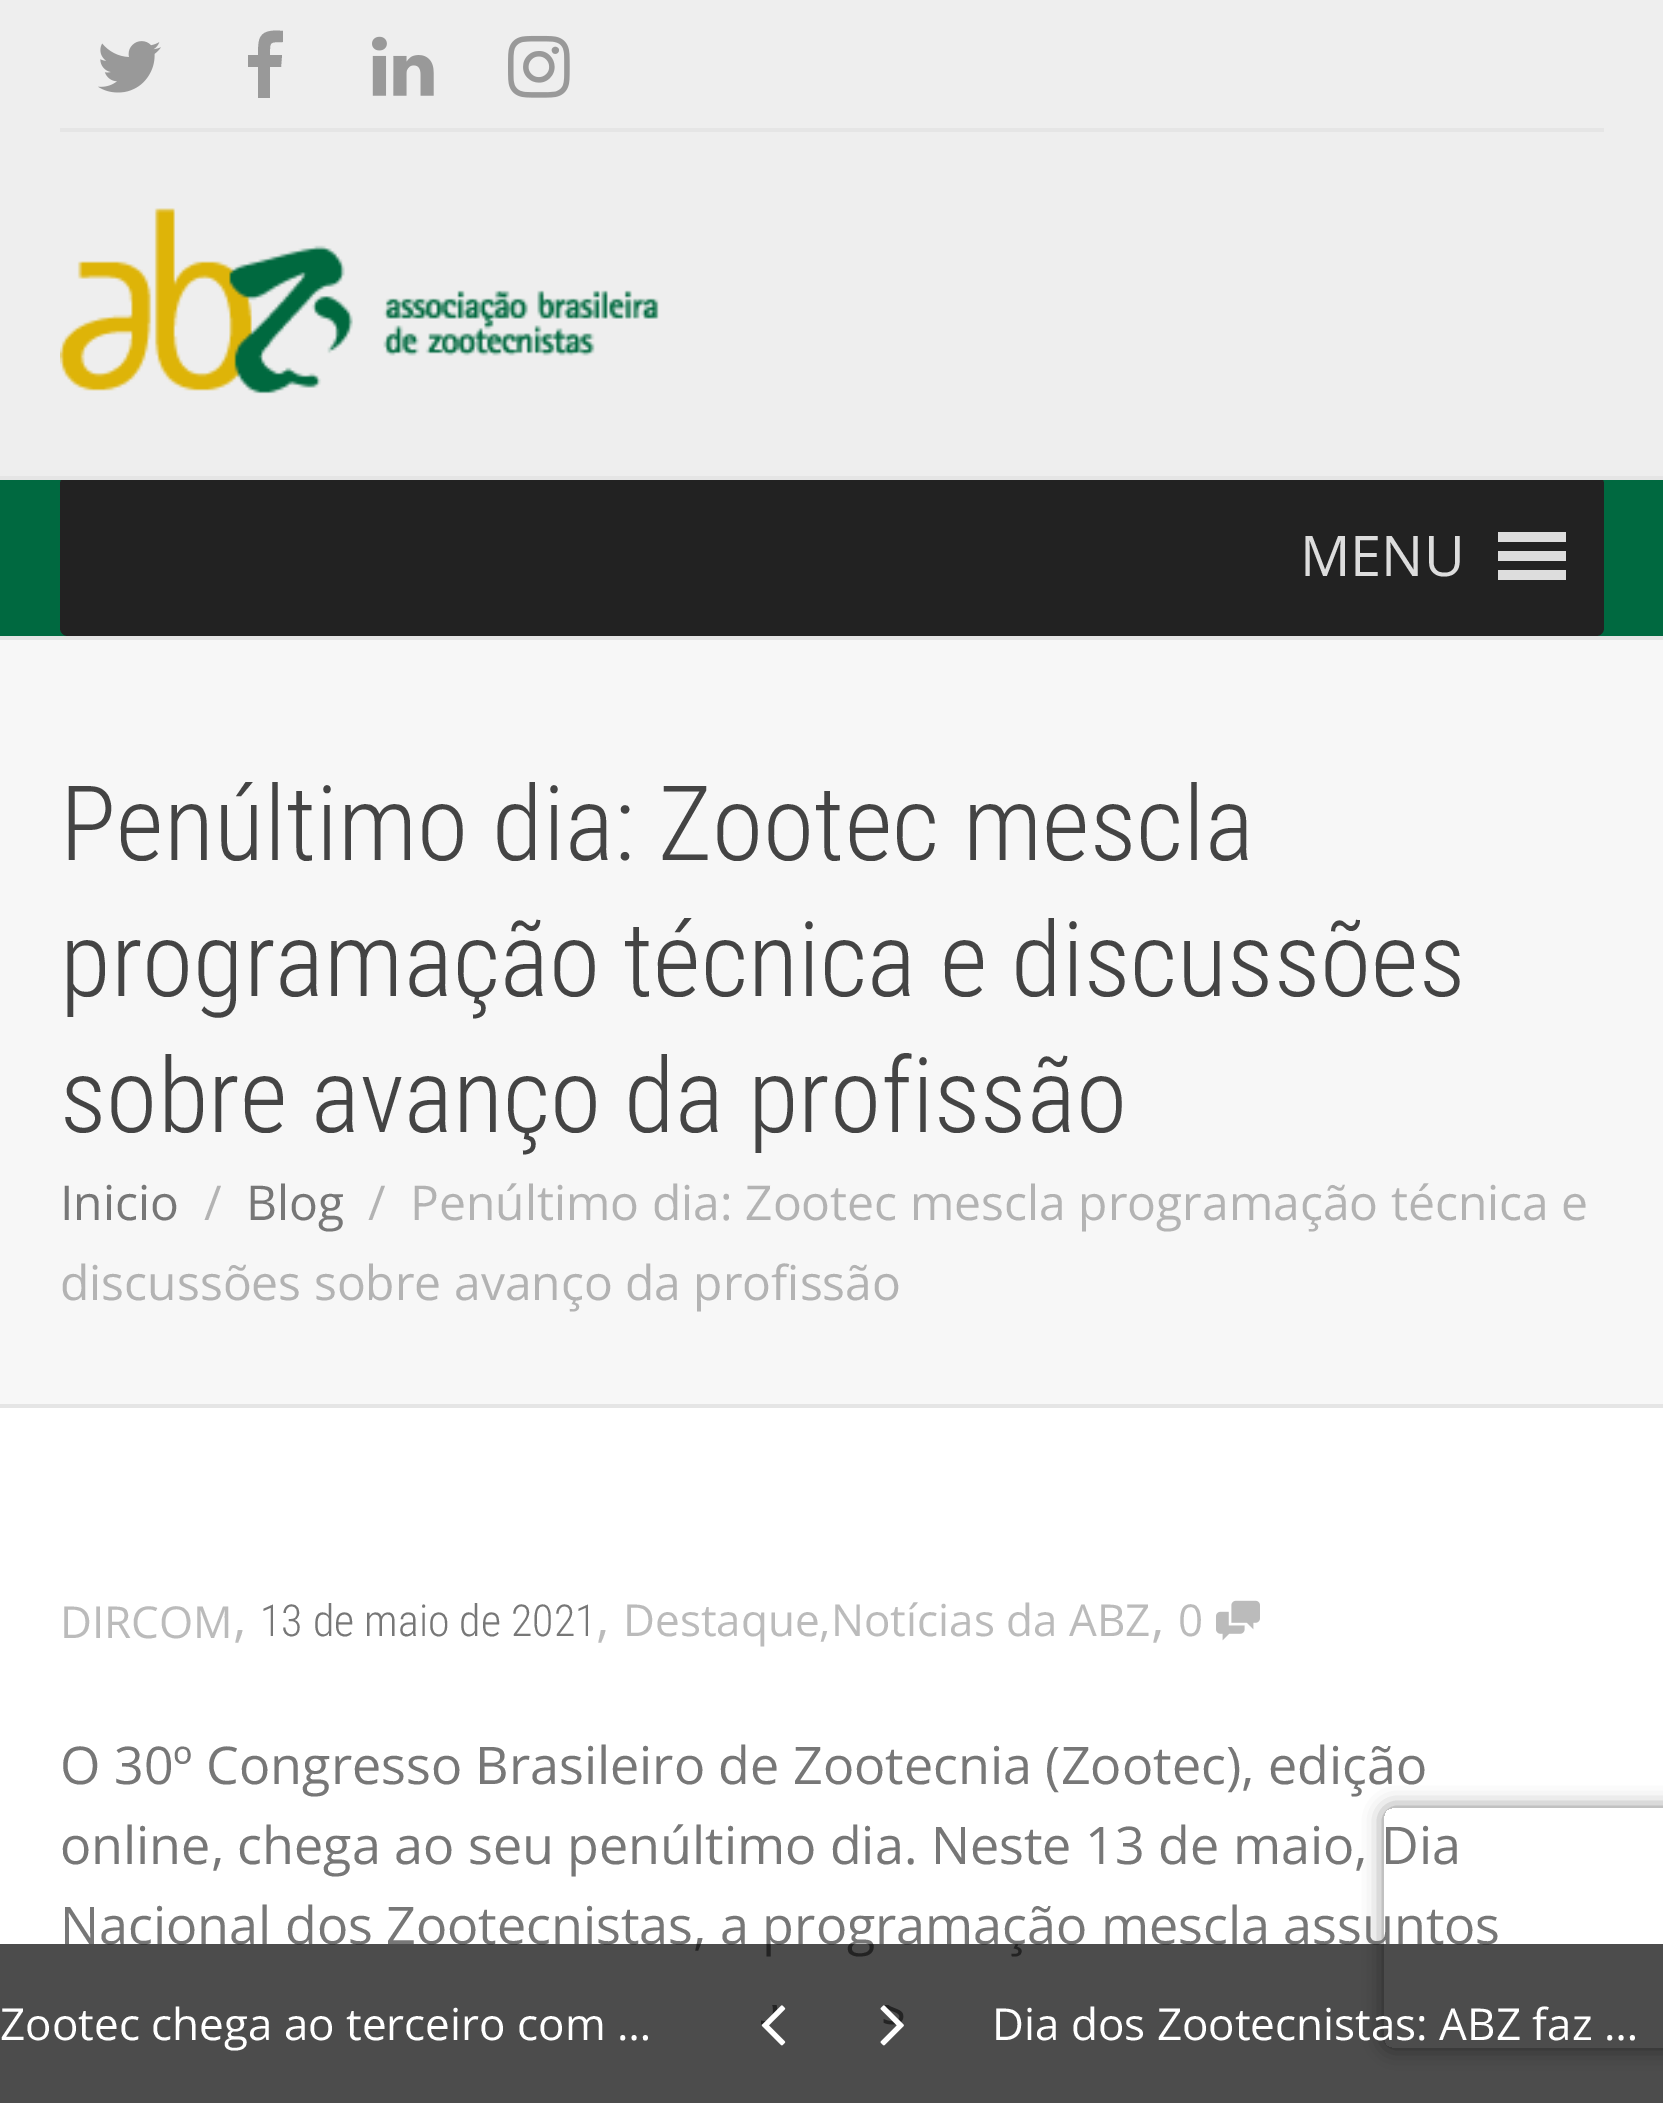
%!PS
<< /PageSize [1663 2103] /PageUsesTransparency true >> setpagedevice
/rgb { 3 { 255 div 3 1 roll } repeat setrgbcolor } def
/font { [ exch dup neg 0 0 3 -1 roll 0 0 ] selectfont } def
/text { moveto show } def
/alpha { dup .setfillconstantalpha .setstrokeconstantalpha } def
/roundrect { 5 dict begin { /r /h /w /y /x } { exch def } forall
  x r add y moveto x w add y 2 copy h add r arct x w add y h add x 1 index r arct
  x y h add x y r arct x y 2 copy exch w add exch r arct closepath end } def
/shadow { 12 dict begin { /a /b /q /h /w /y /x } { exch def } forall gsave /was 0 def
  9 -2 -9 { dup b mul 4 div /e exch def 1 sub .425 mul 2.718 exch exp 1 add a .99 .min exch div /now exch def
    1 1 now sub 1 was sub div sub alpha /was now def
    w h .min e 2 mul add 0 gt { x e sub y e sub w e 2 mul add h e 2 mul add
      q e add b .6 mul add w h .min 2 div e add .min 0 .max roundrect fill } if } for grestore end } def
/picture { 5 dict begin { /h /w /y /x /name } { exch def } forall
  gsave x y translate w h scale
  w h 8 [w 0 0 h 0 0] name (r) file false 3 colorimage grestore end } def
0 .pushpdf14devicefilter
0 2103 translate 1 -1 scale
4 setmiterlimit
255 255 255 rgb
0 0 1663 2103 rectfill
238 238 238 rgb
0 0 1663 476 rectfill
0 105 64 rgb
0 480 1663 156 rectfill
34 34 34 rgb
60 476 1544 160 8 roundrect fill
229 229 229 rgb
0 476 1663 4 rectfill
60 128 1544 4 rectfill
(img_01.rgb) 98 41 63 52 picture
153 153 153 rgb
283 31 moveto 0 11 rlineto -14 0 -13 0 -13 13 rcurveto 12 0 rlineto -1 12 rlineto -11 0 rlineto 0 31 rlineto -12 0 rlineto 0 -31 rlineto -10 0 rlineto 0 -12 rlineto 10 0 rlineto 0 -4 0 -9 1 -14 rcurveto 2 -11 14 -11 24 -10 rcurveto closepath fill
(img_02.rgb) 372 36 62 60 picture
(img_03.rgb) 508 35 62 63 picture
(img_04.rgb) 60 208 599 186 picture
229 229 229 rgb
0 636 1663 4 rectfill
221 221 221 rgb
1498 580 moveto 68 0 rlineto 0 -10 rlineto -68 0 rlineto closepath 1498 532 moveto 0 10 rlineto 68 0 rlineto 0 -10 rlineto closepath 1498 561 moveto 68 0 rlineto 0 -10 rlineto -68 0 rlineto closepath fill
247 247 247 rgb
0 640 1663 764 rectfill
229 229 229 rgb
0 1404 1663 4 rectfill
(img_05.rgb) 1216 1600 44 41 picture
gsave
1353 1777 moveto 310 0 rlineto 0 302 rlineto -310 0 rlineto closepath 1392 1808 moveto 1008 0 rlineto 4.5 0 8 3.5 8 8 rcurveto 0 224 rlineto 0 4.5 -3.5 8 -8 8 rcurveto -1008 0 rlineto -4.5 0 -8 -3.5 -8 -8 rcurveto 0 -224 rlineto 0 -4.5 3.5 -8 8 -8 rcurveto closepath eoclip newpath
128 128 128 rgb
1384 1808 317 240 8 10 1 shadow
grestore
/OpenSans-Regular 56 font
221 221 221 rgb
(MENU) 1300 576 text
/RobotoCondensed-Light 104 font
68 68 68 rgb
(Penúltimo dia: Zootec mescla) 60 860 text
(programação técnica e discussões) 60 996 text
(sobre avanço da profissão) 60 1132 text
/OpenSans-Regular 48 font
119 119 119 rgb
(Inicio) 60 1220 text
179 179 179 rgb
(/) 204 1220 text
119 119 119 rgb
(Blog) 246 1220 text
179 179 179 rgb
(/) 368 1220 text
(Penúltimo dia: Zootec mescla programação técnica e) 410 1220 text
(discussões sobre avanço da profissão) 60 1300 text
/OpenSans-Regular 44 font
187 187 187 rgb
(DIRCOM) 60 1638 text
/OpenSans-Regular 52 font
(,) 233 1636 text
/RobotoCondensed-Light 44 font
119 119 119 rgb
(13 de maio de 2021) 260 1636 text
/OpenSans-Regular 52 font
187 187 187 rgb
(,) 596 1636 text
/OpenSans-Regular 44 font
(Destaque,Notícias da ABZ) 623 1636 text
/OpenSans-Regular 52 font
(,) 1151 1636 text
/OpenSans-Regular 44 font
(0) 1178 1636 text
/OpenSans-Regular 52 font
119 119 119 rgb
(O 30º Congresso Brasileiro de Zootecnia \(Zootec\), edição) 60 1784 text
(online, chega ao seu penúltimo dia. Neste 13 de maio, Dia) 60 1864 text
(Nacional dos Zootecnistas, a programação mescla assuntos) 60 1944 text
0.7 alpha
0 0 0 rgb
0 1944 1663 159 rectfill
/OpenSans-Regular 44 font
1 alpha
255 255 255 rgb
(Zootec chega ao terceiro com …) 0 2040 text
(img_06.rgb) 761 2005 25 41 picture
(img_07.rgb) 880 2005 24 41 picture
(Dia dos Zootecnistas: ABZ faz …) 992 2040 text
.poppdf14devicefilter showpage
